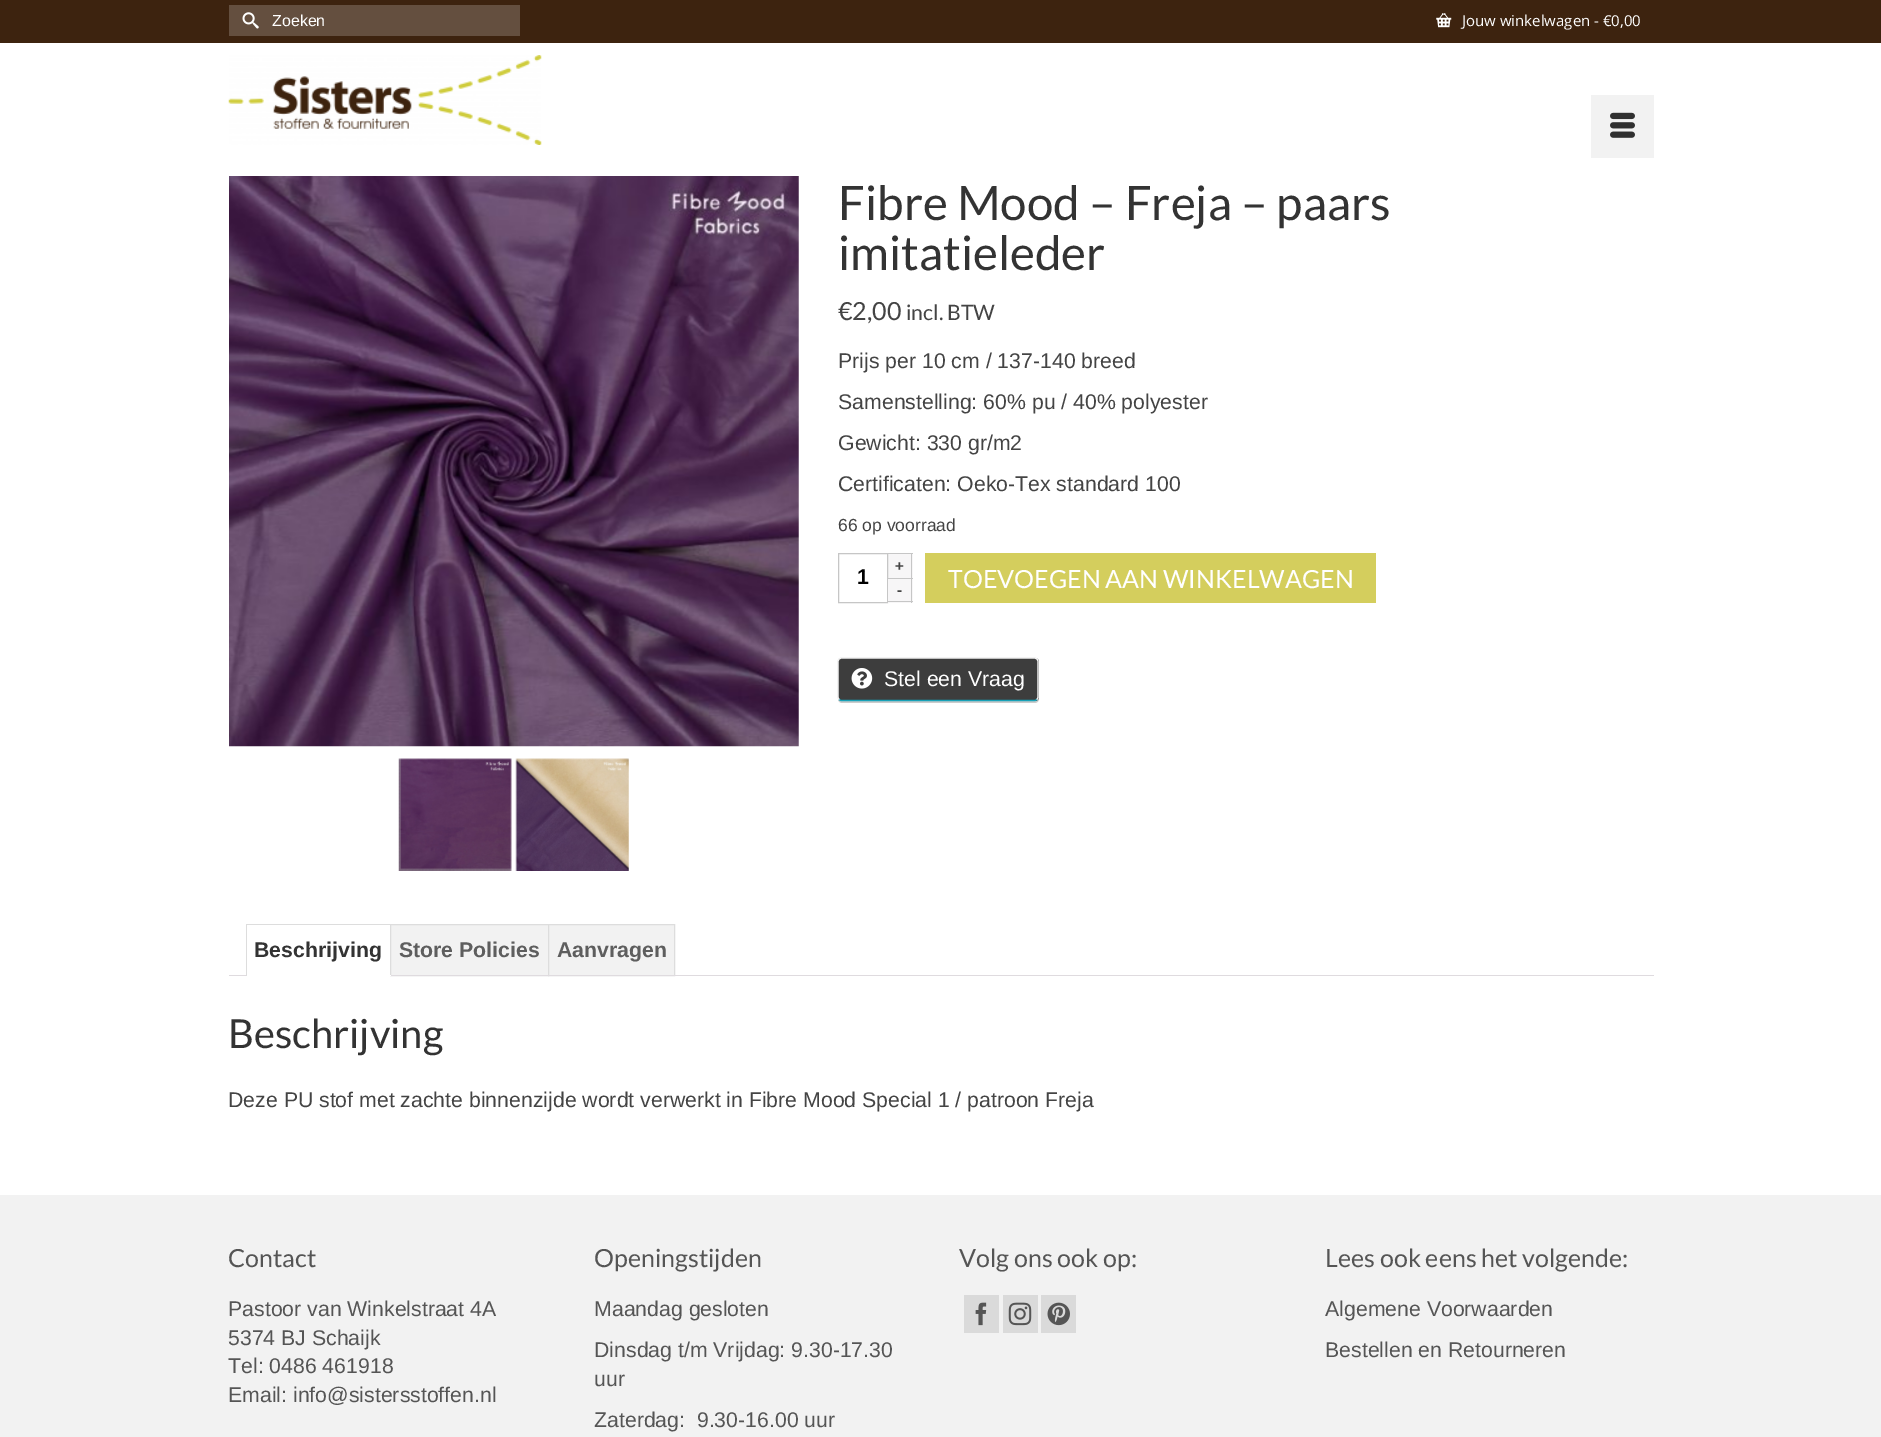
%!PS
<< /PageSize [1881 1437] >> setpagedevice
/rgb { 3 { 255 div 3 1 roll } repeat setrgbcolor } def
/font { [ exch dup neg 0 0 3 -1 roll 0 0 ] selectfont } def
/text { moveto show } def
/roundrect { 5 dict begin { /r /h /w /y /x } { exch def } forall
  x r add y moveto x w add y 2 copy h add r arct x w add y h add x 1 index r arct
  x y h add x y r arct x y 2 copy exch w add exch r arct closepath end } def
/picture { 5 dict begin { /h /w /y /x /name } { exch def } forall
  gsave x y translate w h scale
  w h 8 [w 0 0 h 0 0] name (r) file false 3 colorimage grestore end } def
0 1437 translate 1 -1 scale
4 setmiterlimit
255 255 255 rgb
0 0 1881 1437 rectfill
61 35 15 rgb
0 0 1881 43 rectfill
100 79 63 rgb
229 5 291 31 rectfill
(img_01.rgb) 242 12 17 17 picture
(img_02.rgb) 1436 13 16 15 picture
(img_03.rgb) 228 55 314 90 picture
242 242 242 rgb
1591 95 63 63 rectfill
(img_04.rgb) 1610 112 25 26 picture
(img_05.rgb) 229 176 570 571 picture
(img_06.rgb) 398 758 114 113 picture
(img_07.rgb) 515 758 114 113 picture
247 246 247 rgb
888 554 25 24 rectfill
198 198 198 rgb
888 553 25 1 rectfill
911 553 1 25 rectfill
838.5 553.5 49 49 rectstroke
247 246 247 rgb
888 579 25 24 rectfill
198 198 198 rgb
888 578 25 1 rectfill
911 578 1 25 rectfill
888 601 25 1 rectfill
212 206 93 rgb
925 553 451 50 rectfill
204 204 204 rgb
838 699 moveto 0 2 2 4 4 4 rcurveto 193 0 rlineto 2 0 4 -2 4 -4 rcurveto 0 -37 rlineto 0 36 rlineto 0 2 -2 3 -4 3 rcurveto -194 0 rlineto -1 0 -2 0 -3 -2 rcurveto closepath fill
61 61 61 rgb
838 658 201 43 4 roundrect fill
23 162 184 rgb
1.2 setlinewidth
1037 699.5 moveto -2 1 rlineto -194 0 rlineto -2 -1 rlineto stroke
240 240 240 rgb
839 699.5 moveto -1 -2 rlineto 0 -36.5 rlineto 1 -2 rlineto 2 -1 rlineto 194 0 rlineto 2 1 rlineto 1 2 rlineto 0 36.5 rlineto -1 2 rlineto stroke
(img_08.rgb) 851 668 22 21 picture
242 242 242 rgb
390.5 924.5 moveto 158 0 rlineto 0 51 rlineto -158 0 rlineto closepath gsave fill grestore
221 221 221 rgb
1 setlinewidth
stroke
246 924 145 1 rectfill
242 242 242 rgb
548.5 924.5 moveto 126 0 rlineto 0 51 rlineto -126 0 rlineto closepath gsave fill grestore
221 221 221 rgb
stroke
223 219 223 rgb
229 975 1425 1 rectfill
255 255 255 rgb
246 975 145 1 rectfill
221 221 221 rgb
246 924 1 52 rectfill
242 242 242 rgb
0 1195 1881 242 rectfill
218 218 218 rgb
964 1295 35 38 rectfill
(img_09.rgb) 975 1302 12 24 picture
1003 1295 35 38 rectfill
(img_10.rgb) 1008 1302 24 24 picture
1041 1295 35 38 rectfill
(img_11.rgb) 1047 1302 23 24 picture
/LiberationSans-Regular 16 font
255 255 255 rgb
(Zoeken) 272 26 text
/OpenSans-Regular 15 font
(Jouw winkelwagen - €0,00) 1462 26 text
/Lato-Regular 47.5 font
51 51 51 rgb
(Fibre Mood – Freja – paars) 838 220 text
(imitatieleder) 838 270 text
/Lato-Regular 25 font
68 68 68 rgb
(€2,00) 838 320 text
/Lato-Regular 21.25 font
(incl. BTW) 906 320 text
/LiberationSans-Regular 21.25 font
(Prijs per 10 cm / 137-140 breed) 838 368 text
(Samenstelling: 60% pu / 40% polyester) 838 409 text
(Gewicht: 330 gr/m2) 838 450 text
(Certificaten: Oeko-Tex standard 100) 838 491 text
/LiberationSans-Regular 17.5 font
(66 op voorraad) 838 531 text
/LiberationSans-Bold 15 font
(+) 895 571 text
/LiberationSans-Bold 21.25 font
0 0 0 rgb
(1) 857 584 text
/LiberationSans-Bold 15 font
68 68 68 rgb
(-) 897 595 text
/Lato-Regular 25 font
255 255 255 rgb
(TOEVOEGEN AAN WINKELWAGEN) 948 588 text
/LiberationSans-Regular 21.25 font
(Stel een Vraag) 884 686 text
/LiberationSans-Bold 21.25 font
51 51 51 rgb
(Beschrijving) 254 957 text
94 94 94 rgb
(Store Policies) 399 957 text
(Aanvragen) 557 957 text
/Lato-Regular 40 font
51 51 51 rgb
(Beschrijving) 228 1048 text
/LiberationSans-Regular 21.25 font
68 68 68 rgb
(Deze PU stof met zachte binnenzijde wordt verwerkt in Fibre Mood Special 1 / patroon Freja) 228 1107 text
/Lato-Regular 25 font
85 85 85 rgb
(Contact) 228 1267 text
/LiberationSans-Regular 21.25 font
(Pastoor van Winkelstraat 4A) 228 1316 text
(5374 BJ Schaijk) 228 1345 text
(Tel: 0486 461918) 228 1373 text
(Email: info@sistersstoffen.nl) 228 1402 text
/Lato-Regular 25 font
(Openingstijden) 594 1267 text
/LiberationSans-Regular 21.25 font
(Maandag gesloten) 594 1316 text
(Dinsdag t/m Vrijdag: 9.30-17.30) 594 1357 text
(uur) 594 1386 text
(Zaterdag:  9.30-16.00 uur) 594 1427 text
/Lato-Regular 25 font
(Volg ons ook op:) 959 1267 text
(Lees ook eens het volgende:) 1325 1267 text
/LiberationSans-Regular 21.25 font
(Algemene Voorwaarden) 1325 1316 text
(Bestellen en Retourneren) 1325 1357 text
showpage
